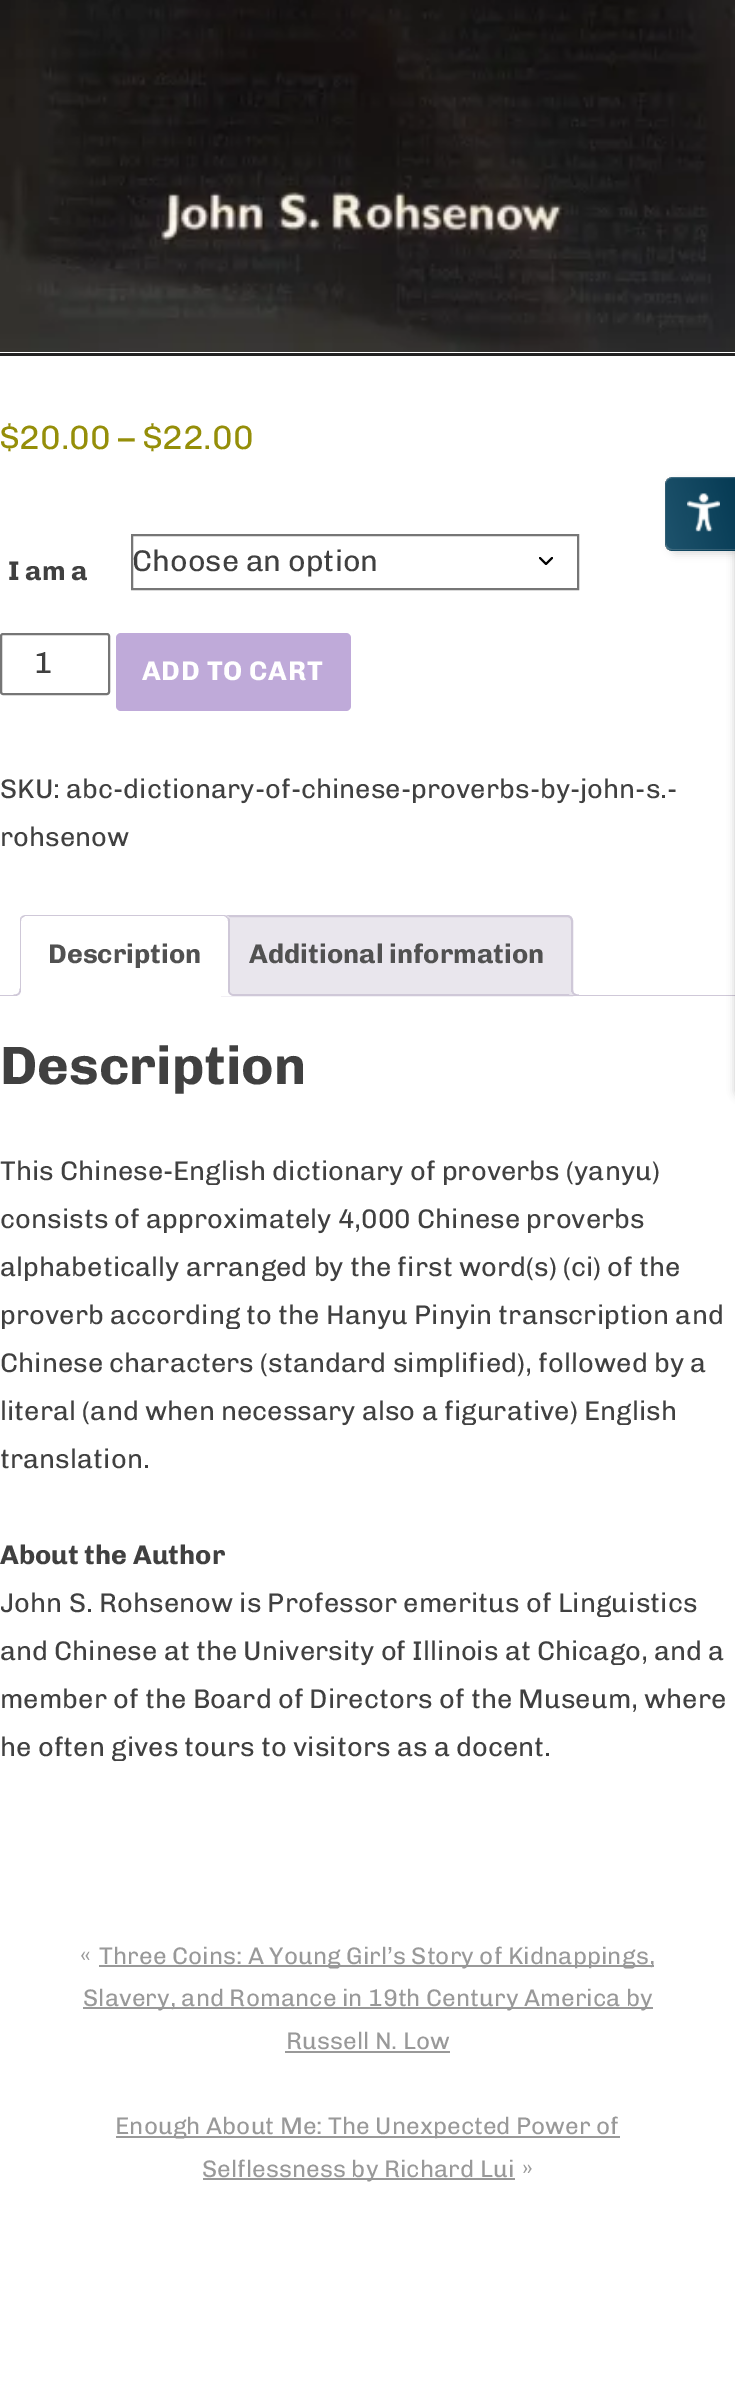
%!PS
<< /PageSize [735 2387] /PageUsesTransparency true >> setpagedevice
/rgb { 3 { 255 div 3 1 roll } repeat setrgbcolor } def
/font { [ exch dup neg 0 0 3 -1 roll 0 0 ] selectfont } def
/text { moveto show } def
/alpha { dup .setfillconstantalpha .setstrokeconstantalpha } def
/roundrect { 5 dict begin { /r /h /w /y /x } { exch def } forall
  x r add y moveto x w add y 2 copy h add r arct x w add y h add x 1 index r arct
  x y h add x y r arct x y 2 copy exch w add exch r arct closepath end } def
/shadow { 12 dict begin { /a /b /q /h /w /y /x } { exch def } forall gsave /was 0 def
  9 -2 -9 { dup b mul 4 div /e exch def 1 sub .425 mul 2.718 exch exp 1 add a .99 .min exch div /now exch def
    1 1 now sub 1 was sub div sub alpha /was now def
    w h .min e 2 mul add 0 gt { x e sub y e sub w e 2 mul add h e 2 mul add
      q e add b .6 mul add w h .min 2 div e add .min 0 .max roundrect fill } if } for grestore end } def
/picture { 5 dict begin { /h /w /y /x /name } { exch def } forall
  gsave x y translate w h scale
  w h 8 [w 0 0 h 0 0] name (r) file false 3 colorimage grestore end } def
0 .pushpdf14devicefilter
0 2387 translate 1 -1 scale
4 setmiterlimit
255 255 255 rgb
0 0 735 2387 rectfill
34 34 34 rgb
0 353 735 3 rectfill
(img_01.rgb) 0 0 735 352 picture
0 0 0 rgb
2 setlinewidth
1 setlinecap
1 setlinejoin
540 558 moveto 6 6 rlineto 6 -6 rlineto stroke
118 118 118 rgb
0 setlinecap
0 setlinejoin
132 535 446 54 rectstroke
1 634 108 60 2 roundrect stroke
191 170 217 rgb
116 633 235 78 5 roundrect fill
233 230 237 rgb
227 916 moveto 340 0 rlineto 3 0 5 2 5 5 rcurveto 0 74 rlineto -350 0 rlineto 0 -74 rlineto 0 -3 2 -5 5 -5 rcurveto closepath gsave fill grestore
207 200 216 rgb
stroke
gsave
0 915 735 81 rectclip
233 230 237 rgb
569 992 moveto 0 4.5 2.5 7 7 7 rcurveto 0 -3 rlineto -2 -0.5 -3.5 -2 -4 -4 rcurveto closepath fill
grestore
571.5 988.5 moveto 7.5 0 rlineto 0 7.5 rlineto -4 0 -7.5 -1.5 -7.5 -6 rcurveto closepath 573 988.5 moveto 6 0 rlineto 0 6 rlineto -3 0 -6 -1 -6 -4.5 rcurveto closepath eofill
0 995 735 1 rectfill
255 255 255 rgb
26 915 moveto 198 0 rlineto 3.5 0 6 2.5 6 6 rcurveto 0 75 rlineto -210 0 rlineto 0 -75 rlineto 0 -3.5 2.5 -6 6 -6 rcurveto closepath fill
207 200 216 rgb
26 915 moveto -2 0 -4 1 -5 2 rcurveto 1 1 rlineto 3 -2 rlineto 199 0 rlineto 1 0 2 1 3 2 rcurveto 1 -1 rlineto -1 -1 -3 -2 -4 -2 rcurveto closepath fill
230 919 moveto 0 77 rlineto -2 -2 rlineto 0 -73 rlineto 0 -1 0 -2 -1 -3 rcurveto 1 -1 rlineto closepath fill
255 255 255 rgb
230 996 moveto -2 -2 rlineto -206 0 rlineto -2 2 rlineto closepath fill
207 200 216 rgb
21 917 moveto -1 1 -1 3 -1 4 rcurveto 0 75 rlineto 2 -2 rlineto -1 0 rlineto 0 -73 rlineto 0 -1 0 -2 1 -3 rcurveto closepath fill
gsave
0 915 735 81 rectclip
255 255 255 rgb
17 995.5 moveto 0 3.5 rlineto 4.5 0 7 -2.5 7 -7 rcurveto -3.5 0 rlineto -0.5 1.5 -2 3 -3.5 3.5 rcurveto closepath fill
grestore
13.5 988.5 moveto 7.5 0 rlineto 0 5.5 -2 7.5 -7.5 7.5 rcurveto closepath 13.5 988.5 moveto 6 0 rlineto 0 4.5 -1.5 6 -6 6 rcurveto closepath eofill
gsave
0 915 735 81 rectclip
255 255 255 rgb
225 992 moveto 0 5.5 3 7 8 7 rcurveto 0 -3 rlineto -2 -0.5 -4 -2 -4.5 -4 rcurveto closepath fill
grestore
228 988.5 moveto 7.5 0 rlineto 0 7.5 rlineto -4 0 -7.5 -1.5 -7.5 -6 rcurveto closepath 229.5 988.5 moveto 6 0 rlineto 0 6 rlineto -3 0 -6 -1 -6 -4.5 rcurveto closepath eofill
153 153 153 rgb
99 1965 555 2 rectfill
83 2007 570 2 rectfill
285 2051 165 2 rectfill
116 2136 504 2 rectfill
203 2178 312 2 rectfill
0 0 0 rgb
669 480 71 74 8 4 0.14 shadow
0 1 1 rgb
735 485 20 613 8 4 0.2 shadow
9 90 129 rgb
673 477 moveto 62 0 rlineto 0 74 rlineto -62 0 rlineto -4.5 0 -8 -3.5 -8 -8 rcurveto 0 -58 rlineto 0 -4.5 3.5 -8 8 -8 rcurveto closepath fill
gsave
673 477 moveto 62 0 rlineto 0 74 rlineto -62 0 rlineto -4.5 0 -8 -3.5 -8 -8 rcurveto 0 -58 rlineto 0 -4.5 3.5 -8 8 -8 rcurveto closepath clip newpath
0.35 alpha
gsave 666 477 moveto 69 0 rlineto 0 2 rlineto -69 0 rlineto closepath clip newpath
<< /ShadingType 2 /ColorSpace /DeviceRGB /Coords [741 432 660 454] /Extend [true true] /Function << /FunctionType 3 /Domain [0 1] /Functions [<< /FunctionType 2 /Domain [0 1] /C0 [0 0 0] /C1 [0 0 0] /N 1 >> << /FunctionType 2 /Domain [0 1] /C0 [0 0 0] /C1 [0.263 0.263 0.263] /N 1 >> << /FunctionType 2 /Domain [0 1] /C0 [0.263 0.263 0.263] /C1 [0.263 0.263 0.263] /N 1 >>] /Bounds [0.01 0.98] /Encode [0 1 0 1 0 1] >> >> shfill grestore
gsave 665 479 moveto 1 0 rlineto 0 70 rlineto -1 0 rlineto closepath clip newpath
<< /ShadingType 2 /ColorSpace /DeviceRGB /Coords [672 503 591 525] /Extend [true true] /Function << /FunctionType 3 /Domain [0 1] /Functions [<< /FunctionType 2 /Domain [0 1] /C0 [0 0 0] /C1 [0 0 0] /N 1 >> << /FunctionType 2 /Domain [0 1] /C0 [0 0 0] /C1 [0.263 0.263 0.263] /N 1 >> << /FunctionType 2 /Domain [0 1] /C0 [0.263 0.263 0.263] /C1 [0.263 0.263 0.263] /N 1 >>] /Bounds [0.01 0.98] /Encode [0 1 0 1 0 1] >> >> shfill grestore
gsave 666 479 moveto 69 0 rlineto 0 70 rlineto -69 0 rlineto closepath clip newpath
<< /ShadingType 2 /ColorSpace /DeviceRGB /Coords [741 503 660 525] /Extend [true true] /Function << /FunctionType 3 /Domain [0 1] /Functions [<< /FunctionType 2 /Domain [0 1] /C0 [0 0 0] /C1 [0 0 0] /N 1 >> << /FunctionType 2 /Domain [0 1] /C0 [0 0 0] /C1 [0.263 0.263 0.263] /N 1 >> << /FunctionType 2 /Domain [0 1] /C0 [0.263 0.263 0.263] /C1 [0.263 0.263 0.263] /N 1 >>] /Bounds [0.01 0.98] /Encode [0 1 0 1 0 1] >> >> shfill grestore
gsave 666 549 moveto 69 0 rlineto 0 2 rlineto -69 0 rlineto closepath clip newpath
<< /ShadingType 2 /ColorSpace /DeviceRGB /Coords [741 573 660 595] /Extend [true true] /Function << /FunctionType 3 /Domain [0 1] /Functions [<< /FunctionType 2 /Domain [0 1] /C0 [0 0 0] /C1 [0 0 0] /N 1 >> << /FunctionType 2 /Domain [0 1] /C0 [0 0 0] /C1 [0.263 0.263 0.263] /N 1 >> << /FunctionType 2 /Domain [0 1] /C0 [0.263 0.263 0.263] /C1 [0.263 0.263 0.263] /N 1 >>] /Bounds [0.01 0.98] /Encode [0 1 0 1 0 1] >> >> shfill grestore
grestore
0.17 alpha
255 255 255 rgb
672 477 moveto 63 0 rlineto 0 73 rlineto -63 0 rlineto -4 0 -8 -3 -8 -7 rcurveto 0 -59 rlineto 0 -4 4 -7 8 -7 rcurveto closepath 672 478 moveto 63 0 rlineto 0 71 rlineto -63 0 rlineto -3 0 -6 -3 -6 -6 rcurveto 0 -59 rlineto 0 -3 3 -6 6 -6 rcurveto closepath eofill
1 alpha
(img_02.rgb) 687 493 33 39 picture
/Chivo-Regular 33.75 font
149 142 9 rgb
($20.00 – $22.00) 0 449 text
/Chivo-Bold 27 font
64 64 64 rgb
(I am a) 8 580 text
/Chivo-Regular 30 font
(Choose an option) 132 571 text
(1) 34 673 text
/Chivo-Bold 27 font
255 255 255 rgb
142 680 moveto 0.75 0 (ADD TO CART) ashow
/Chivo-Regular 27 font
64 64 64 rgb
(SKU: abc-dictionary-of-chinese-proverbs-by-john-s.-) 0 798 text
(rohsenow) 0 846 text
/Chivo-Bold 27 font
81 81 81 rgb
(Description) 48 963 text
(Additional information) 249 963 text
/Chivo-Bold 54 font
64 64 64 rgb
(Description) 0 1084 text
/Chivo-Regular 27 font
(This Chinese-English dictionary of proverbs \(yanyu\)) 0 1180 text
(consists of approximately 4,000 Chinese proverbs) 0 1228 text
(alphabetically arranged by the first word\(s\) \(ci\) of the) 0 1276 text
(proverb according to the Hanyu Pinyin transcription and) 0 1324 text
(Chinese characters \(standard simplified\), followed by a) 0 1372 text
(literal \(and when necessary also a figurative\) English) 0 1420 text
(translation.) 0 1468 text
/Chivo-Bold 27 font
(About the Author) 0 1564 text
/Chivo-Regular 27 font
(John S. Rohsenow is Professor emeritus of Linguistics) 0 1612 text
(and Chinese at the University of Illinois at Chicago, and a) 0 1660 text
(member of the Board of Directors of the Museum, where) 0 1708 text
(he often gives tours to visitors as a docent.) 0 1756 text
/Chivo-Regular 24 font
153 153 153 rgb
(«) 80 1964 text
(Three Coins: A Young Girl’s Story of Kidnappings,) 99 1964 text
(Slavery, and Romance in 19th Century America by) 83 2006 text
(Russell N. Low) 286 2049 text
(Enough About Me: The Unexpected Power of) 115 2134 text
(Selflessness by Richard Lui) 202 2177 text
(») 522 2177 text
.poppdf14devicefilter showpage
